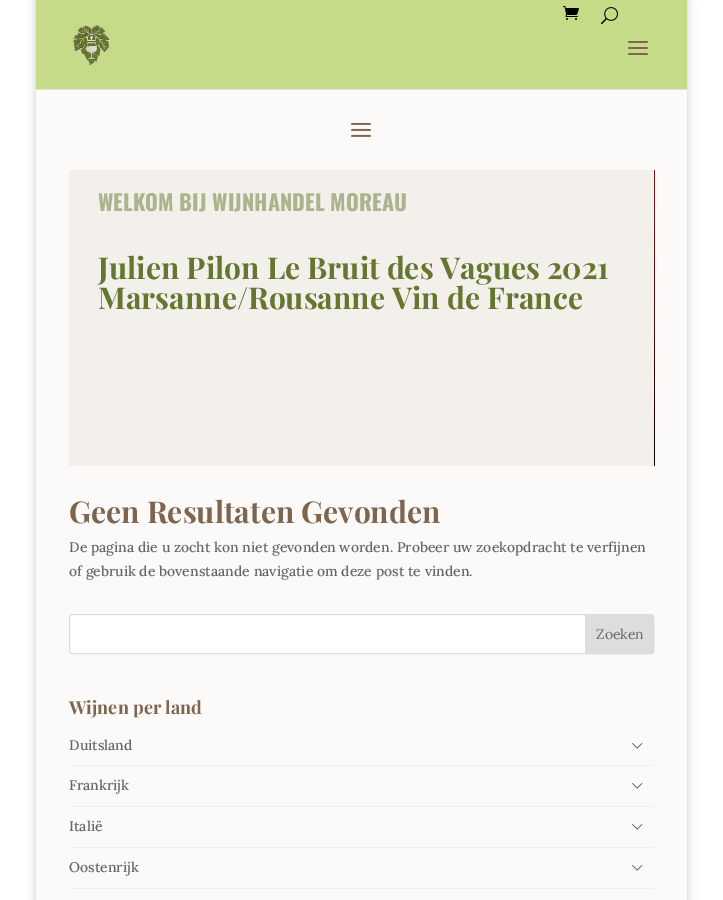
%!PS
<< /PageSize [723 900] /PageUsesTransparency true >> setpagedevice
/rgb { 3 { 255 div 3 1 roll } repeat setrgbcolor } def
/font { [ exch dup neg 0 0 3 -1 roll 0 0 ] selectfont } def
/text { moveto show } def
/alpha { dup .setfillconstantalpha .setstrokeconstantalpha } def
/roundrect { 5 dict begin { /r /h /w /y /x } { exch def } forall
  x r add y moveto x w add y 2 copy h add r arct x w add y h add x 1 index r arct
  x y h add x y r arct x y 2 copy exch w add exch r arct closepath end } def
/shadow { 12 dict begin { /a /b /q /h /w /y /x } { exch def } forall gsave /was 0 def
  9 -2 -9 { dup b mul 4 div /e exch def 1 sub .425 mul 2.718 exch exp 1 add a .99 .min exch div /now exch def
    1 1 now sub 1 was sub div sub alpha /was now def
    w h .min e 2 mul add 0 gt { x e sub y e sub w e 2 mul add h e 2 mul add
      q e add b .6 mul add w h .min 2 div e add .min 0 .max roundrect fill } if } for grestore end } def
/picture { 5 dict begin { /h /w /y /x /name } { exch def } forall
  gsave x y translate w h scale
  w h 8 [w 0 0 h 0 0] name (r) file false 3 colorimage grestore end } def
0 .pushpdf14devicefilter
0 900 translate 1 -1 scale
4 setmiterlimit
255 255 255 rgb
0 0 723 900 rectfill
0 0 0 rgb
36 0 651 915 0 5 0.2 shadow
226 225 224 rgb
36 89 651 1 rectfill
198 219 135 rgb
36 0 651 89 rectfill
(img_01.rgb) 73 24 39 43 picture
(img_02.rgb) 563 6 16 14 picture
(img_03.rgb) 601 7 17 18 picture
(img_04.rgb) 628 41 20 14 picture
251 250 249 rgb
36 90 651 810 rectfill
(img_05.rgb) 351 122 20 15 picture
(img_06.rgb) 654 170 1 296 picture
243 239 235 rgb
69 170 585 296 rectfill
255 255 255 rgb
69.5 614.5 584 39 2.5 roundrect gsave fill grestore
221 221 221 rgb
stroke
585.5 614.5 moveto 65.5 0 rlineto 1.5 0 2.5 1 2.5 2.5 rcurveto 0 34 rlineto 0 1.5 -1 2.5 -2.5 2.5 rcurveto -65.5 0 rlineto closepath gsave fill grestore
stroke
238 238 238 rgb
69 765 585 1 rectfill
(img_07.rgb) 632 743 11 6 picture
69 806 585 1 rectfill
(img_07.rgb) 632 783 11 6 picture
69 847 585 1 rectfill
(img_07.rgb) 632 824 11 6 picture
69 888 585 1 rectfill
(img_07.rgb) 632 865 11 6 picture
/Oswald-Bold 22 font
170 180 141 rgb
(WELKOM BIJ WIJNHANDEL MOREAU) 98 211 text
/PlayfairDisplay-Bold 30 font
100 118 47 rgb
(Julien Pilon Le Bruit des Vagues 2021) 98 279 text
(Marsanne/Rousanne Vin de France) 98 309 text
126 101 80 rgb
(Geen Resultaten Gevonden) 69 523 text
/Lora-Medium 14 font
102 102 102 rgb
(De pagina die u zocht kon niet gevonden worden. Probeer uw zoekopdracht te verfijnen) 69 552 text
(of gebruik de bovenstaande navigatie om deze post te vinden.) 69 576 text
/Lora-Regular 14 font
(Zoeken) 596 639 text
/PlayfairDisplay-Bold 18 font
126 101 80 rgb
(Wijnen per land) 69 714 text
/Lora-Medium 14 font
102 102 102 rgb
(Duitsland) 69 750 text
(Frankrijk) 69 790 text
(Italië) 69 831 text
(Oostenrijk) 69 872 text
.poppdf14devicefilter showpage
